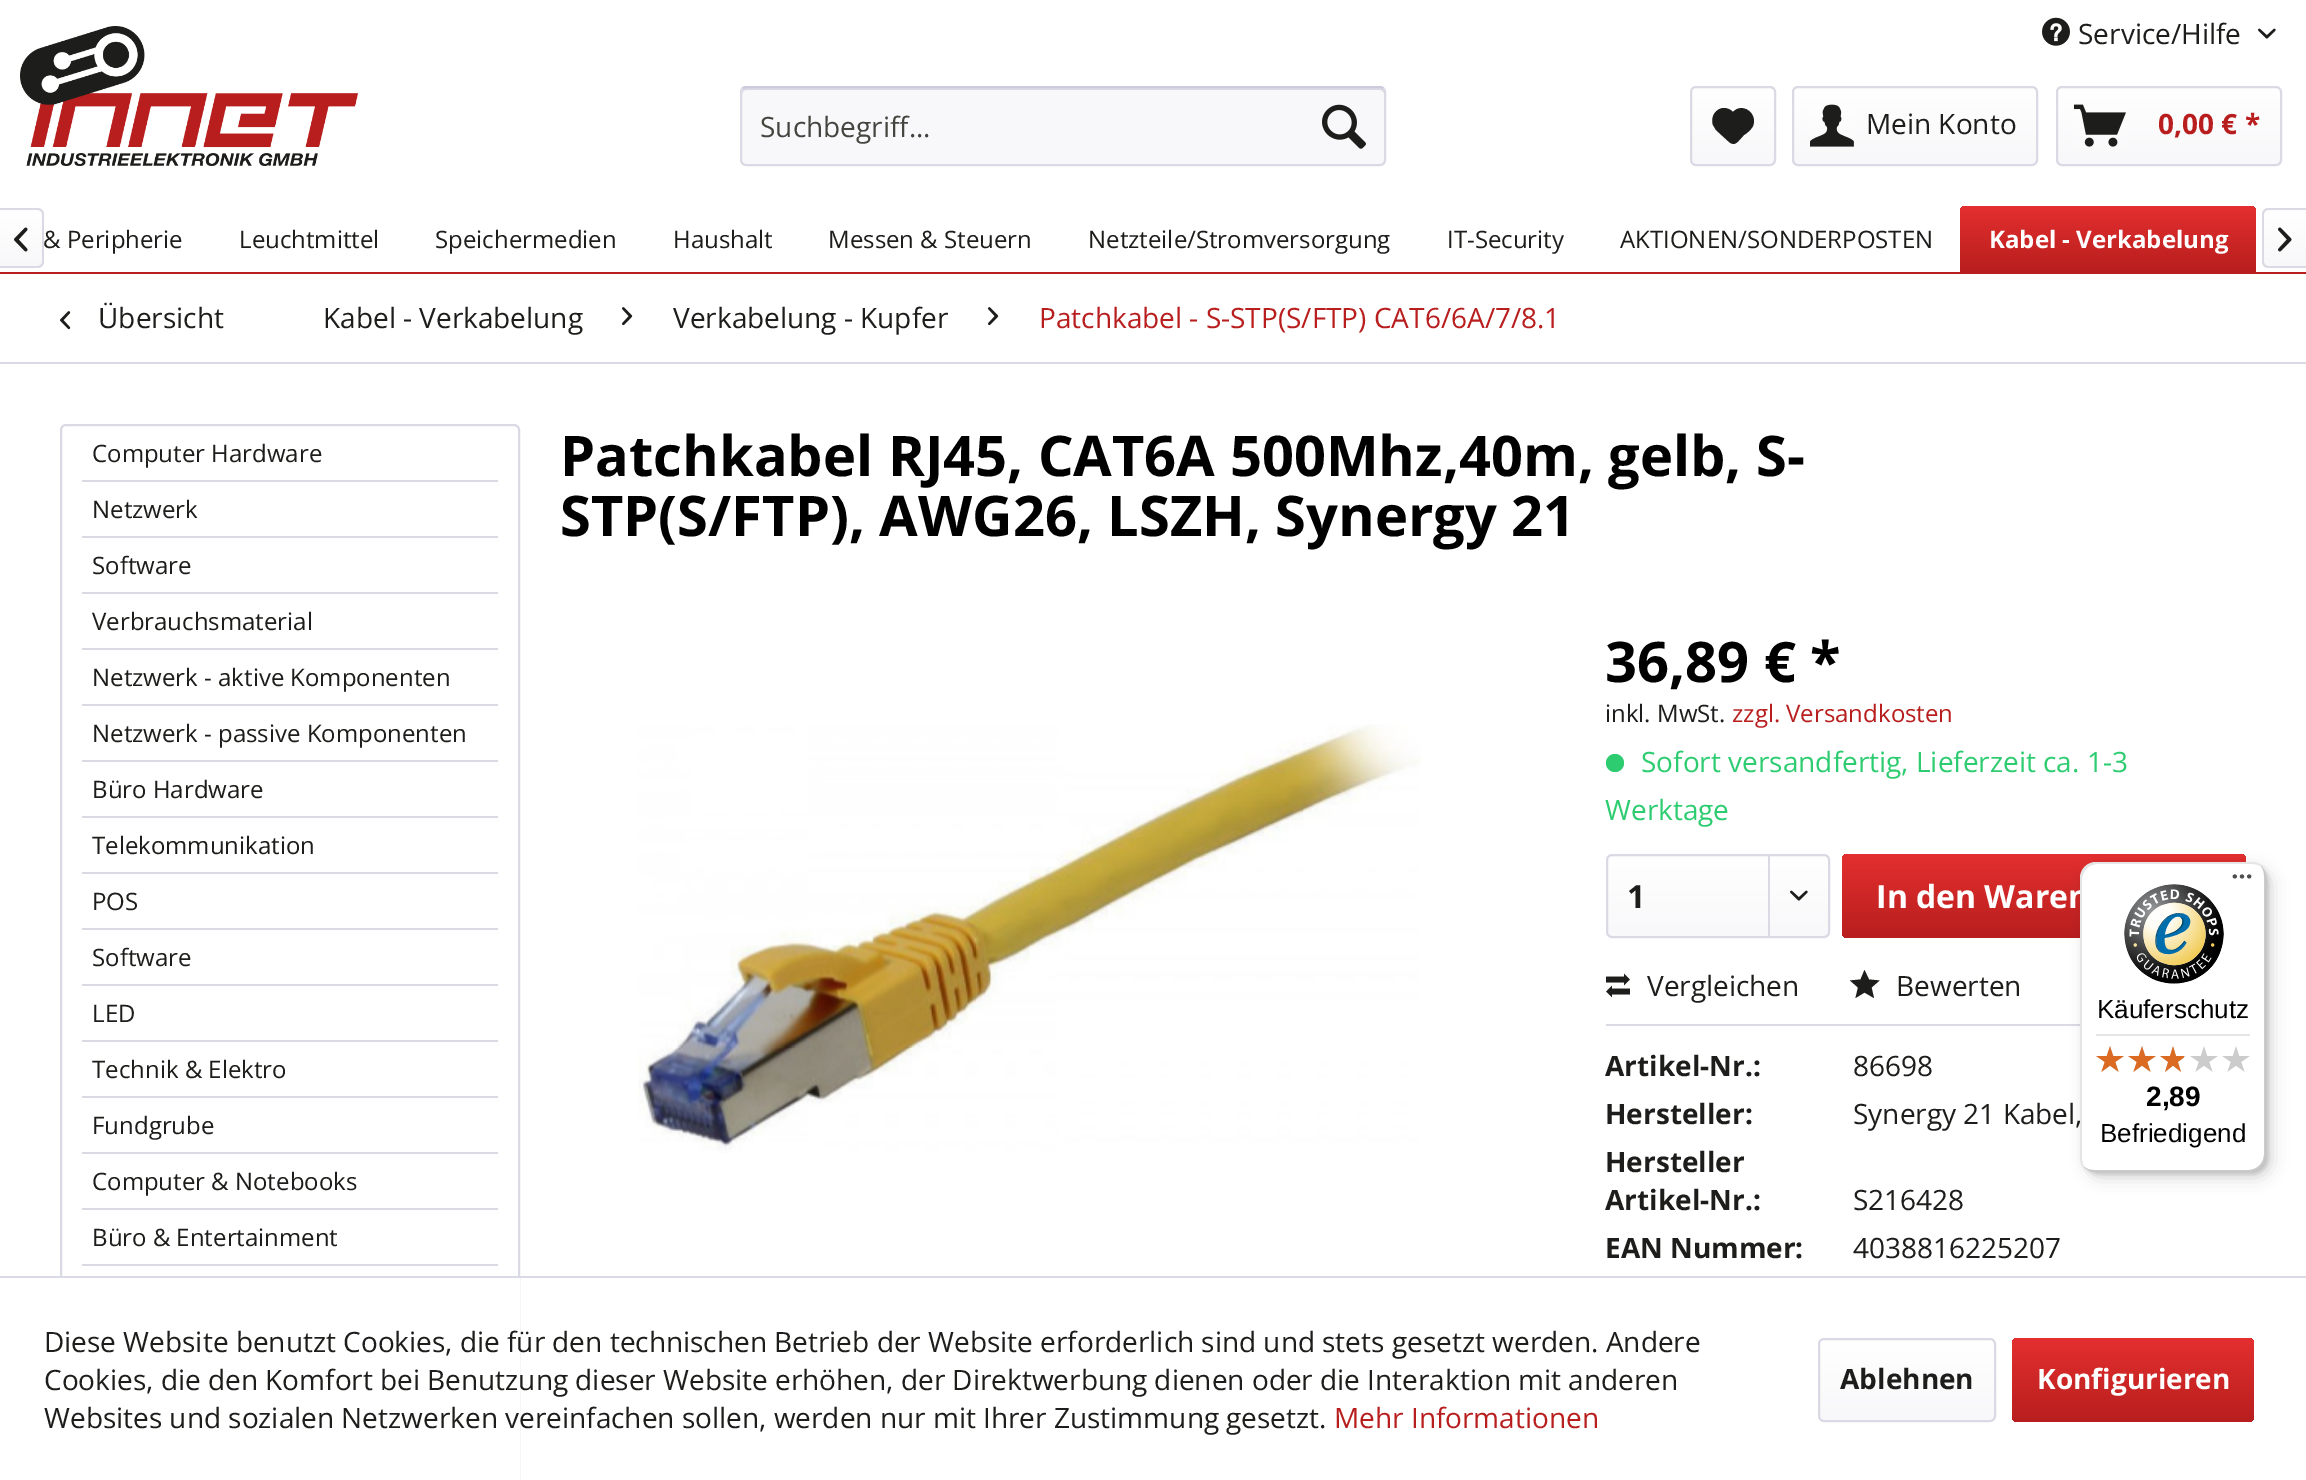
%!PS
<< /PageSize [2306 1480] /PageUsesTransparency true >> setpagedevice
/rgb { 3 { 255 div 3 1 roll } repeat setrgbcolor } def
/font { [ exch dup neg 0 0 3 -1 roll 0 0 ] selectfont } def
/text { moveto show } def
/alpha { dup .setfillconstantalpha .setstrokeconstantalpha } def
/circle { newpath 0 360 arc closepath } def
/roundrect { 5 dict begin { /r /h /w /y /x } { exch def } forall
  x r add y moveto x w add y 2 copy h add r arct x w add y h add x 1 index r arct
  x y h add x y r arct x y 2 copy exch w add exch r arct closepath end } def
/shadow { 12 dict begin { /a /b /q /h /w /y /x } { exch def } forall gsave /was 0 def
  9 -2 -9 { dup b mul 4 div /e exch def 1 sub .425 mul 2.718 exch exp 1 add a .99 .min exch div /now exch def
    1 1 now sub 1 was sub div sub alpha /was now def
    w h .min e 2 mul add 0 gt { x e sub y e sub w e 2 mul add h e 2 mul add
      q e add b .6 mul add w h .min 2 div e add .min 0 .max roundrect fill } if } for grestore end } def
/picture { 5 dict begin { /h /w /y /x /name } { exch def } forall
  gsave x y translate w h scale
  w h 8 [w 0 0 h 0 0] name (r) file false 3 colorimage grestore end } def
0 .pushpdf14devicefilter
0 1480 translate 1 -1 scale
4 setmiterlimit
255 255 255 rgb
0 0 2306 1480 rectfill
(img_01.rgb) 2042 17 28 29 picture
(img_02.rgb) 2258 28 18 11 picture
(img_03.rgb) 20 26 338 140 picture
248 248 250 rgb
740 86 646 80 6 roundrect fill
218 218 229 rgb
746 90 moveto 634 0 rlineto 2 0 4 2 4 4 rcurveto 0 -3 0 -6 -4 -6 rcurveto -636 0 rlineto -1 2 rlineto -1 1 -1 3 -1 4 rcurveto 0 -2 2 -4 4 -4 rcurveto closepath fill
203 203 219 rgb
2 setlinewidth
742.5 88.5 moveto 1 -1 2 -1.5 3.5 -1.5 rcurveto 634 0 rlineto 1.5 0 2.5 0.5 3.5 1.5 rcurveto stroke
218 218 229 rgb
1383.5 88.5 moveto 1 1 1.5 2 1.5 3.5 rcurveto 0 68 rlineto 0 1.5 -0.5 2.5 -1.5 3.5 rcurveto -1 1 -2 1.5 -3.5 1.5 rcurveto -634 0 rlineto -1.5 0 -2.5 -0.5 -3.5 -1.5 rcurveto -1 -1 -1.5 -2 -1.5 -3.5 rcurveto 0 -68 rlineto 0 -1.5 0.5 -2.5 1.5 -3.5 rcurveto stroke
(img_04.rgb) 1322 104 44 45 picture
gsave 1692 88 82 76 4 roundrect clip newpath
<< /ShadingType 2 /ColorSpace /DeviceRGB /Coords [1733 88 1733 164] /Extend [true true] /Function << /FunctionType 2 /Domain [0 1] /C0 [1 1 1] /C1 [0.973 0.973 0.98] /N 1 >> >> shfill grestore
1691 87 84 78 5 roundrect stroke
29 29 27 rgb
1724 108 moveto -8 0 -14 9 -11 17 rcurveto 3 5 rlineto 12 11 rlineto 7 7 10 0 16 -6 rcurveto 3 -2 7 -5 9 -9 rcurveto 5 -13 -11 -24 -20 -14 rcurveto -2 -2 -5 -4 -9 -4 rcurveto closepath fill
gsave 1794 88 242 76 4 roundrect clip newpath
<< /ShadingType 2 /ColorSpace /DeviceRGB /Coords [1915 88 1915 164] /Extend [true true] /Function << /FunctionType 2 /Domain [0 1] /C0 [1 1 1] /C1 [0.973 0.973 0.98] /N 1 >> >> shfill grestore
218 218 229 rgb
1793 87 244 78 5 roundrect stroke
(img_05.rgb) 1810 104 44 43 picture
gsave 2058 88 222 76 4 roundrect clip newpath
<< /ShadingType 2 /ColorSpace /DeviceRGB /Coords [2169 88 2169 164] /Extend [true true] /Function << /FunctionType 2 /Domain [0 1] /C0 [1 1 1] /C1 [0.973 0.973 0.98] /N 1 >> >> shfill grestore
2057 87 224 78 5 roundrect stroke
(img_06.rgb) 2074 104 52 43 picture
184 30 30 rgb
0 272 2306 2 rectfill
gsave 0 210 moveto 38 0 rlineto 2 0 4 2 4 4 rcurveto 0 48 rlineto 0 2 -2 4 -4 4 rcurveto -38 0 rlineto closepath clip newpath
<< /ShadingType 2 /ColorSpace /DeviceRGB /Coords [21 210 21 266] /Extend [true true] /Function << /FunctionType 2 /Domain [0 1] /C0 [1 1 1] /C1 [0.973 0.973 0.98] /N 1 >> >> shfill grestore
218 218 229 rgb
0 208 moveto 38 0 rlineto 3 0 6 3 6 6 rcurveto 0 48 rlineto 0 3 -3 6 -6 6 rcurveto -38 0 rlineto closepath 0 210 moveto 38 0 rlineto 2 0 4 2 4 4 rcurveto 0 48 rlineto 0 2 -2 4 -4 4 rcurveto -38 0 rlineto closepath eofill
(img_07.rgb) 14 227 14 25 picture
gsave 1966 206 moveto 284 0 rlineto 3.5 0 6 2.5 6 6 rcurveto 0 60 rlineto -296 0 rlineto 0 -60 rlineto 0 -3.5 2.5 -6 6 -6 rcurveto closepath clip newpath
<< /ShadingType 2 /ColorSpace /DeviceRGB /Coords [2108 206 2108 272] /Extend [true true] /Function << /FunctionType 2 /Domain [0 1] /C0 [0.894 0.184 0.184] /C1 [0.722 0.118 0.118] /N 1 >> >> shfill grestore
gsave 2268 210 moveto 38 0 rlineto 0 56 rlineto -38 0 rlineto -2 0 -4 -2 -4 -4 rcurveto 0 -48 rlineto 0 -2 2 -4 4 -4 rcurveto closepath clip newpath
<< /ShadingType 2 /ColorSpace /DeviceRGB /Coords [2285 210 2285 266] /Extend [true true] /Function << /FunctionType 2 /Domain [0 1] /C0 [1 1 1] /C1 [0.973 0.973 0.98] /N 1 >> >> shfill grestore
2268 208 moveto 38 0 rlineto 0 60 rlineto -38 0 rlineto -3 0 -6 -3 -6 -6 rcurveto 0 -48 rlineto 0 -3 3 -6 6 -6 rcurveto closepath 2268 210 moveto 38 0 rlineto 0 56 rlineto -38 0 rlineto -2 0 -4 -2 -4 -4 rcurveto 0 -48 rlineto 0 -2 2 -4 4 -4 rcurveto closepath eofill
(img_08.rgb) 2278 227 14 25 picture
0 362 2306 2 rectfill
(img_09.rgb) 60 311 11 19 picture
(img_10.rgb) 622 307 11 19 picture
(img_10.rgb) 988 307 11 19 picture
61 425 458 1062 5 roundrect stroke
82 480 416 2 rectfill
82 536 416 2 rectfill
82 592 416 2 rectfill
82 648 416 2 rectfill
82 704 416 2 rectfill
82 760 416 2 rectfill
82 816 416 2 rectfill
82 872 416 2 rectfill
82 928 416 2 rectfill
82 984 416 2 rectfill
82 1040 416 2 rectfill
82 1096 416 2 rectfill
82 1152 416 2 rectfill
82 1208 416 2 rectfill
82 1264 416 2 rectfill
(img_11.rgb) 638 724 783 429 picture
46 204 113 rgb
1615 763 9 circle fill
gsave 1608 856 220 80 4 roundrect clip newpath
<< /ShadingType 2 /ColorSpace /DeviceRGB /Coords [1718 856 1718 936] /Extend [true true] /Function << /FunctionType 2 /Domain [0 1] /C0 [1 1 1] /C1 [0.973 0.973 0.98] /N 1 >> >> shfill grestore
218 218 229 rgb
1607 855 222 82 5 roundrect stroke
1768 856 2 80 rectfill
(img_12.rgb) 1790 890 18 11 picture
gsave 1842 854 404 84 6 roundrect clip newpath
<< /ShadingType 2 /ColorSpace /DeviceRGB /Coords [2044 854 2044 938] /Extend [true true] /Function << /FunctionType 2 /Domain [0 1] /C0 [0.894 0.184 0.184] /C1 [0.722 0.118 0.118] /N 1 >> >> shfill grestore
1606 1024 474 2 rectfill
(img_13.rgb) 1606 973 24 25 picture
29 29 27 rgb
1864.5 970 moveto -4 9.5 rlineto -10.5 1 rlineto 8 7 rlineto -2.5 10.5 rlineto 9 -5.5 rlineto 9.5 5.5 rlineto -2.5 -10.5 rlineto 8 -7 rlineto -10.5 -1 rlineto closepath fill
0 0 0 rgb
2086 868 186 310 16 8 0.15 shadow
2082 864 186 310 16 2 0.15 shadow
255 255 255 rgb
60 1278 460 202 rectfill
218 218 229 rgb
0 1276 2306 2 rectfill
gsave 1820 1340 174 80 4 roundrect clip newpath
<< /ShadingType 2 /ColorSpace /DeviceRGB /Coords [1907 1340 1907 1420] /Extend [true true] /Function << /FunctionType 2 /Domain [0 1] /C0 [1 1 1] /C1 [0.973 0.973 0.98] /N 1 >> >> shfill grestore
1819 1339 176 82 5 roundrect stroke
gsave 2012 1338 242 84 6 roundrect clip newpath
<< /ShadingType 2 /ColorSpace /DeviceRGB /Coords [2133 1338 2133 1422] /Extend [true true] /Function << /FunctionType 2 /Domain [0 1] /C0 [0.894 0.184 0.184] /C1 [0.722 0.118 0.118] /N 1 >> >> shfill grestore
/OpenSans-Regular 28 font
29 29 27 rgb
(Service/Hilfe) 2078 44 text
69 69 64 rgb
(Suchbegriff...) 760 137 text
29 29 27 rgb
(Mein Konto) 1866 134 text
/OpenSans-Bold 28 font
184 30 30 rgb
(0,00 € *) 2158 134 text
/OpenSans-Regular 24 font
29 29 27 rgb
(& Peripherie) 43 248 text
(Leuchtmittel) 239 248 text
(Speichermedien) 435 248 text
(Haushalt) 673 248 text
(Messen & Steuern) 828 248 text
(Netzteile/Stromversorgung) 1088 248 text
(IT-Security) 1447 248 text
(AKTIONEN/SONDERPOSTEN) 1620 248 text
/OpenSans-Bold 24 font
255 255 255 rgb
(Kabel - Verkabelung) 1989 248 text
/OpenSans-Regular 28 font
29 29 27 rgb
(Übersicht) 98 328 text
(Kabel - Verkabelung) 323 328 text
(Verkabelung - Kupfer) 673 328 text
184 30 30 rgb
(Patchkabel - S-STP\(S/FTP\) CAT6/6A/7/8.1) 1039 328 text
/OpenSans-Regular 24 font
29 29 27 rgb
(Computer Hardware) 92 462 text
(Netzwerk) 92 518 text
(Software) 92 574 text
(Verbrauchsmaterial) 92 630 text
(Netzwerk - aktive Komponenten) 92 686 text
(Netzwerk - passive Komponenten) 92 742 text
(Büro Hardware) 92 798 text
(Telekommunikation) 92 854 text
(POS) 92 910 text
(Software) 92 966 text
(LED) 92 1022 text
(Technik & Elektro) 92 1078 text
(Fundgrube) 92 1134 text
(Computer & Notebooks) 92 1190 text
(Büro & Entertainment) 92 1246 text
/OpenSans-Bold 56 font
0 0 0 rgb
(Patchkabel RJ45, CAT6A 500Mhz,40m, gelb, S-) 560 476 text
(STP\(S/FTP\), AWG26, LSZH, Synergy 21) 560 536 text
(36,89 € *) 1605 682 text
/OpenSans-Regular 24 font
29 29 27 rgb
(inkl. MwSt.) 1605 722 text
184 30 30 rgb
(zzgl. Versandkosten) 1732 722 text
/OpenSans-Regular 28 font
46 204 113 rgb
(Sofort versandfertig, Lieferzeit ca. 1-3) 1641 772 text
(Werktage) 1605 820 text
/OpenSans-Bold 32 font
29 29 27 rgb
(1) 1627 908 text
255 255 255 rgb
(In den Waren) 1876 908 text
/OpenSans-Regular 28 font
29 29 27 rgb
(Vergleichen) 1647 996 text
(Bewerten) 1896 996 text
/OpenSans-Bold 28 font
(Artikel-Nr.:) 1605 1076 text
/OpenSans-Regular 28 font
(86698) 1853 1076 text
/OpenSans-Bold 28 font
(Hersteller:) 1605 1124 text
/OpenSans-Regular 28 font
(Synergy 21 Kabel,) 1853 1124 text
/OpenSans-Bold 28 font
(Hersteller) 1605 1172 text
(Artikel-Nr.:) 1605 1210 text
/OpenSans-Regular 28 font
(S216428) 1853 1210 text
/OpenSans-Bold 28 font
(EAN Nummer:) 1605 1258 text
/OpenSans-Regular 28 font
(4038816225207) 1853 1258 text
255 255 255 rgb
2080 862 186 310 16 roundrect fill
0.1 alpha
0 0 0 rgb
2098 864 moveto 154 0 rlineto 4 0 7 1 10 3 rcurveto -3 -3 -7 -5 -12 -5 rcurveto -154 0 rlineto -9 0 -16 7 -16 16 rcurveto 0 278 rlineto 0 5 2 9 5 12 rcurveto -2 -3 -3 -6 -3 -10 rcurveto 0 -278 rlineto 0 -9 7 -16 16 -16 rcurveto closepath fill
0.2 alpha
2084 1167 moveto 3 3 7 5 12 5 rcurveto 154 0 rlineto 9 0 16 -7 16 -16 rcurveto 0 -278 rlineto 0 -5 -2 -9 -5 -12 rcurveto 2 3 3 6 3 10 rcurveto 0 278 rlineto 0 9 -7 16 -16 16 rcurveto -154 0 rlineto -4 0 -7 -1 -10 -3 rcurveto closepath fill
50 50 50 rgb
2085 1167 moveto 3 3 7 5 11 5 rcurveto 154 0 rlineto 9 0 16 -7 16 -16 rcurveto 0 -278 rlineto 0 -4 -2 -8 -5 -11 rcurveto 3 3 4 6 4 10 rcurveto 0 278 rlineto 0 9 -7 16 -16 16 rcurveto -154 0 rlineto -4 0 -7 -1 -10 -4 rcurveto closepath fill
0.3 alpha
255 255 255 rgb
2085 1167 moveto 3 3 7 5 11 5 rcurveto 154 0 rlineto 9 0 16 -7 16 -16 rcurveto 0 -278 rlineto 0 -4 -2 -8 -5 -11 rcurveto 3 3 4 6 4 10 rcurveto 0 278 rlineto 0 9 -7 16 -16 16 rcurveto -154 0 rlineto -4 0 -7 -1 -10 -4 rcurveto closepath fill
1 alpha
(img_14.rgb) 2232 874 20 5 picture
(img_15.rgb) 2124 884 100 100 picture
/LiberationSans-Regular 26 font
0 0 0 rgb
(Käuferschutz) 2097 1018 text
229 229 229 rgb
2096 1034 154 2 rectfill
(img_16.rgb) 2096 1046 28 26 picture
(img_16.rgb) 2128 1046 28 26 picture
(img_17.rgb) 2160 1046 26 26 picture
(img_16.rgb) 2190 1046 28 26 picture
(img_16.rgb) 2222 1046 28 26 picture
(img_18.rgb) 2096 1046 28 26 picture
(img_18.rgb) 2128 1046 28 26 picture
(img_19.rgb) 2160 1046 24 26 picture
/LiberationSans-Bold 28 font
0 0 0 rgb
(2,89) 2146 1106 text
/LiberationSans-Regular 26 font
(Befriedigend) 2100 1142 text
/OpenSans-Regular 28 font
29 29 27 rgb
(Diese Website benutzt Cookies, die für den technischen Betrieb der Website erforderlich sind und stets gesetzt werden. Andere) 44 1352 text
(Cookies, die den Komfort bei Benutzung dieser Website erhöhen, der Direktwerbung dienen oder die Interaktion mit anderen) 44 1390 text
(Websites und sozialen Netzwerken vereinfachen sollen, werden nur mit Ihrer Zustimmung gesetzt.) 44 1428 text
184 30 30 rgb
(Mehr Informationen) 1334 1428 text
/OpenSans-Bold 28 font
29 29 27 rgb
(Ablehnen) 1840 1389 text
255 255 255 rgb
(Konfigurieren) 2037 1389 text
.poppdf14devicefilter showpage
